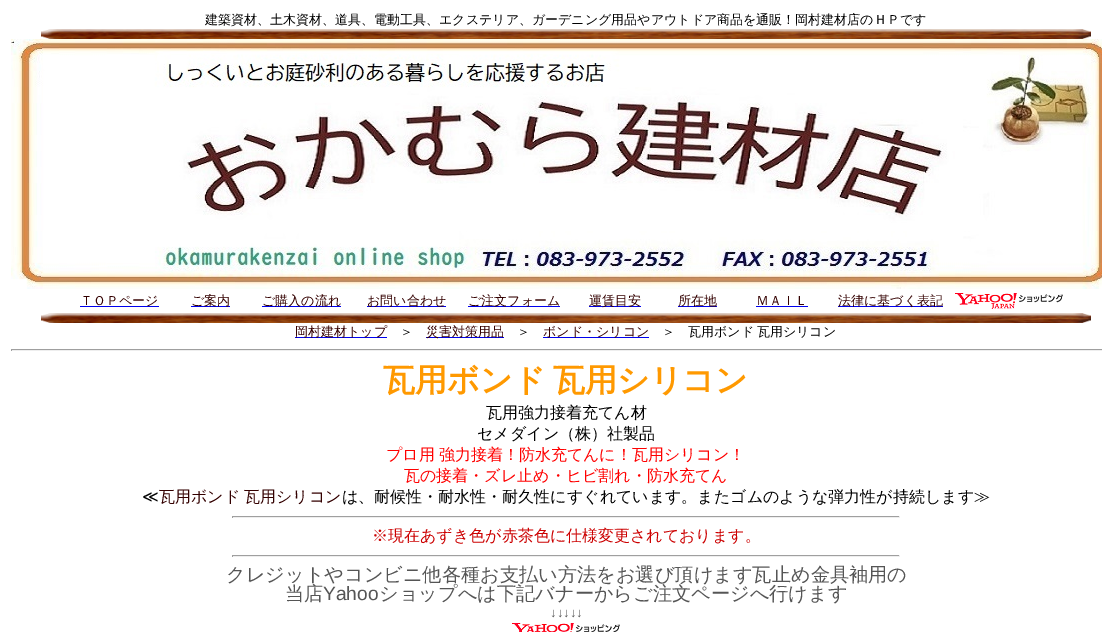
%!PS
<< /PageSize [1102 632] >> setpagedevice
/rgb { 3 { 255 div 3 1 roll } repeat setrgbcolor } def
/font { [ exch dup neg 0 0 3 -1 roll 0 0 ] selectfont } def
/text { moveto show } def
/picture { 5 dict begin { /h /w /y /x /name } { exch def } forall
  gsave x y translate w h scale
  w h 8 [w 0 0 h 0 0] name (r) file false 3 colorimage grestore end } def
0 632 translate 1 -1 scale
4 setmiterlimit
255 255 255 rgb
0 0 1102 632 rectfill
(img_01.rgb) 41 29 1050 10 picture
(img_02.rgb) 11 39 1091 250 picture
0 0 238 rgb
80 306 79 1 rectfill
191 306 39 1 rectfill
262 306 79 1 rectfill
367 306 79 1 rectfill
468 306 92 1 rectfill
589 306 52 1 rectfill
678 306 39 1 rectfill
756 306 52 1 rectfill
838 306 105 1 rectfill
(img_03.rgb) 955 293 108 16 picture
(img_01.rgb) 41 313 1050 10 picture
295 337 92 1 rectfill
426 337 78 1 rectfill
543 337 106 1 rectfill
159 159 159 rgb
11 349 1091 1 rectfill
238 238 238 rgb
11 350 1091 1 rectfill
159 159 159 rgb
11 349 1 2 rectfill
232 516 668 1 rectfill
238 238 238 rgb
899 516 1 2 rectfill
232 517 668 1 rectfill
159 159 159 rgb
232 516 1 2 rectfill
232 555 668 1 rectfill
238 238 238 rgb
899 555 1 2 rectfill
232 556 668 1 rectfill
159 159 159 rgb
232 555 1 2 rectfill
(img_04.rgb) 512 623 108 9 picture
/WenQuanYiZenHei-Medium 13 font
0 0 0 rgb
(建築資材、土木資材、道具、電動工具、エクステリア、ガーデニング用品やアウトドア商品を通販！岡村建材店のＨＰです) 205 24 text
51 0 0 rgb
(ＴＯＰページ) 80 305 text
(ご案内) 191 305 text
(ご購入の流れ) 262 305 text
(お問い合わせ) 367 305 text
(ご注文フォーム) 468 305 text
(運賃目安) 589 305 text
(所在地) 678 305 text
(ＭＡＩＬ) 756 305 text
(法律に基づく表記) 838 305 text
(岡村建材トップ) 295 336 text
0 0 0 rgb
(＞) 400 336 text
51 0 0 rgb
(災害対策用品) 426 336 text
0 0 0 rgb
(＞) 517 336 text
51 0 0 rgb
(ボンド・シリコン) 543 336 text
0 0 0 rgb
662 336 moveto -1 0 32 (＞　瓦用ボンド 瓦用シリコン) widthshow
/WenQuanYiZenHei-Bold 32 font
255 153 0 rgb
383 391 moveto -2 0 32 (瓦用ボンド 瓦用シリコン) widthshow
/WenQuanYiZenHei-Medium 16 font
0 0 0 rgb
(瓦用強力接着充てん材) 486 418 text
(セメダイン（株）社製品) 477 439 text
255 0 0 rgb
386 460 moveto -1 0 32 (プロ用 強力接着！防水充てんに！瓦用シリコン！) widthshow
(瓦の接着・ズレ止め・ヒビ割れ・防水充てん) 404 481 text
/DejaVuSans-Regular 16 font
0 0 0 rgb
(≪) 142 502 text
/WenQuanYiZenHei-Medium 16 font
51 0 0 rgb
159 502 moveto -1 0 32 (瓦用ボンド 瓦用シリコン) widthshow
0 0 0 rgb
(は、耐候性・耐水性・耐久性にすぐれています。またゴムのような弾力性が持続します≫) 342 502 text
204 0 0 rgb
(※現在あずき色が赤茶色に仕様変更されております。) 372 541 text
/WenQuanYiZenHei-Medium 19.2 font
85 85 85 rgb
(クレジットやコンビニ他各種お支払い方法をお選び頂けます瓦止め金具袖用の) 226 581 text
(当店) 285 600 text
/LiberationSans-Regular 19.2 font
(Yahoo) 323 600 text
/WenQuanYiZenHei-Medium 19.2 font
(ショップへは下記バナーからご注文ページへ行けます) 379 600 text
/LiberationSans-Regular 13 font
(↓↓↓↓↓) 550 617 text
showpage
